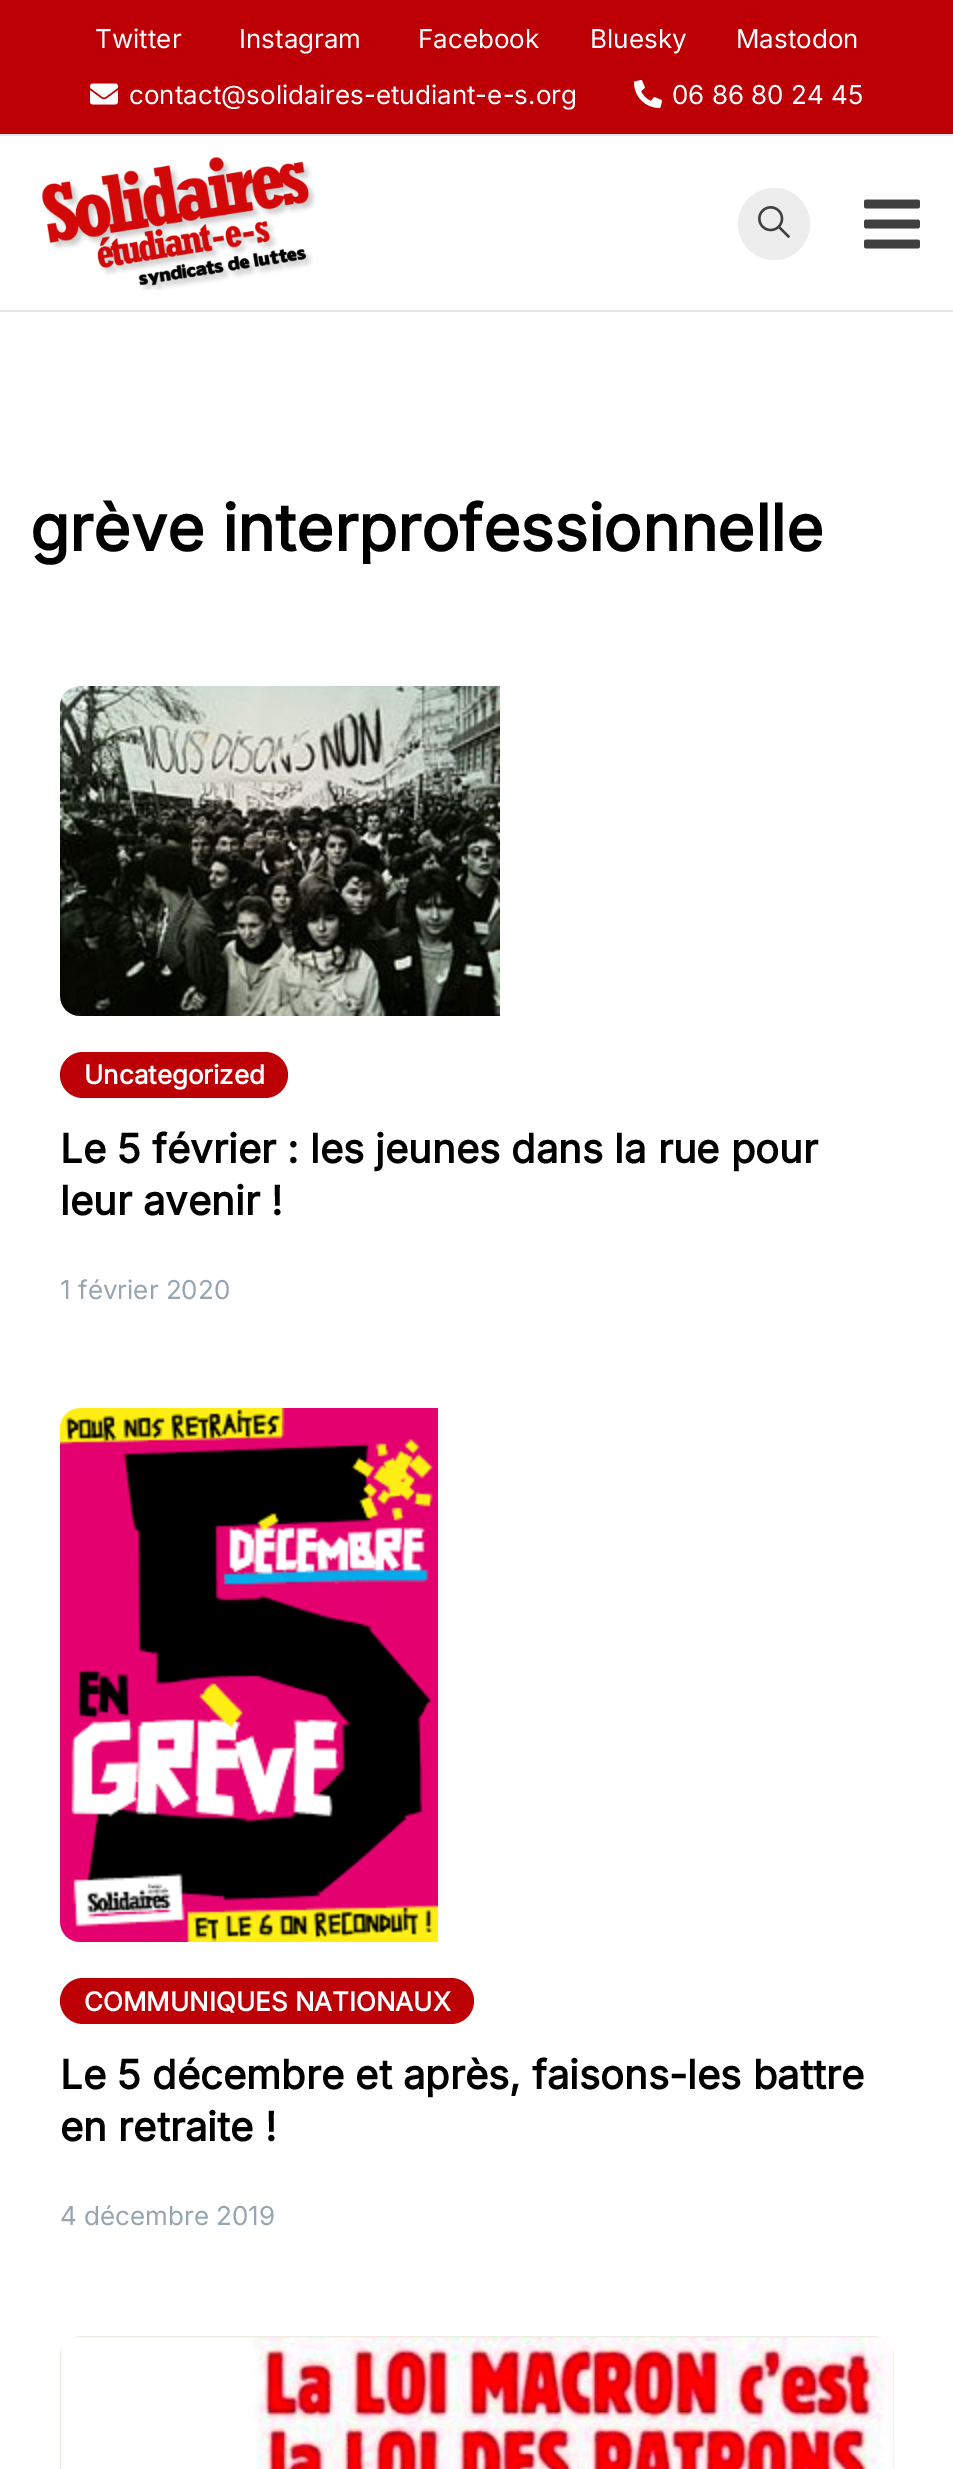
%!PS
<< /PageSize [953 2469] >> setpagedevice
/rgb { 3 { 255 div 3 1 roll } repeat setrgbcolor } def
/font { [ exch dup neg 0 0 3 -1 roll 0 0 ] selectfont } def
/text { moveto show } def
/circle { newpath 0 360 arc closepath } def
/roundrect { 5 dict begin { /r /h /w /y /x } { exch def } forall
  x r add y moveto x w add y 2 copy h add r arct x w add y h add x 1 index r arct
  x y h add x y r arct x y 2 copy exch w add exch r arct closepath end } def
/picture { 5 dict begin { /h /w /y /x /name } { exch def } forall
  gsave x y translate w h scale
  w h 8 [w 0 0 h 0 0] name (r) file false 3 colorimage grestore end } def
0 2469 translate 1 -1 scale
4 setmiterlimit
255 255 255 rgb
0 0 953 2469 rectfill
188 0 6 rgb
0 0 953 134 rectfill
228 230 234 rgb
0 134 953 2 rectfill
(img_01.rgb) 90 83 28 22 picture
(img_02.rgb) 634 80 28 28 picture
0 310 953 2 rectfill
(img_03.rgb) 41 156 275 134 picture
237 237 237 rgb
774 224 36 circle fill
(img_04.rgb) 758 206 32 32 picture
(img_05.rgb) 864 199 56 50 picture
(img_06.rgb) 60 686 440 330 picture
188 0 6 rgb
60 1052 228 46 23 roundrect fill
(img_07.rgb) 60 1408 378 534 picture
60 1978 414 46 23 roundrect fill
(img_08.rgb) 60 2336 834 133 picture
/Inter-Regular 26 font
255 255 255 rgb
(Twitter) 95 48 text
(Instagram) 239 48 text
(Facebook) 418 48 text
(Bluesky) 590 48 text
(Mastodon) 736 48 text
(contact@solidaires-etudiant-e-s.org) 129 104 text
(06 86 80 24 45) 672 104 text
/Inter-Bold 64 font
0 0 0 rgb
(grève interprofessionnelle) 30 551 text
/Inter-Bold 26 font
255 255 255 rgb
(Uncategorized) 84 1084 text
/Inter-Bold 40 font
0 0 0 rgb
(Le 5 février : les jeunes dans la rue pour) 60 1163 text
(leur avenir !) 60 1215 text
/Inter-Regular 26 font
151 165 177 rgb
(1 février 2020) 60 1299 text
/Inter-Bold 26 font
255 255 255 rgb
(COMMUNIQUES NATIONAUX) 84 2011 text
/Inter-Bold 40 font
0 0 0 rgb
(Le 5 décembre et après, faisons-les battre) 60 2089 text
(en retraite !) 60 2141 text
/Inter-Regular 26 font
151 165 177 rgb
(4 décembre 2019) 60 2225 text
showpage
